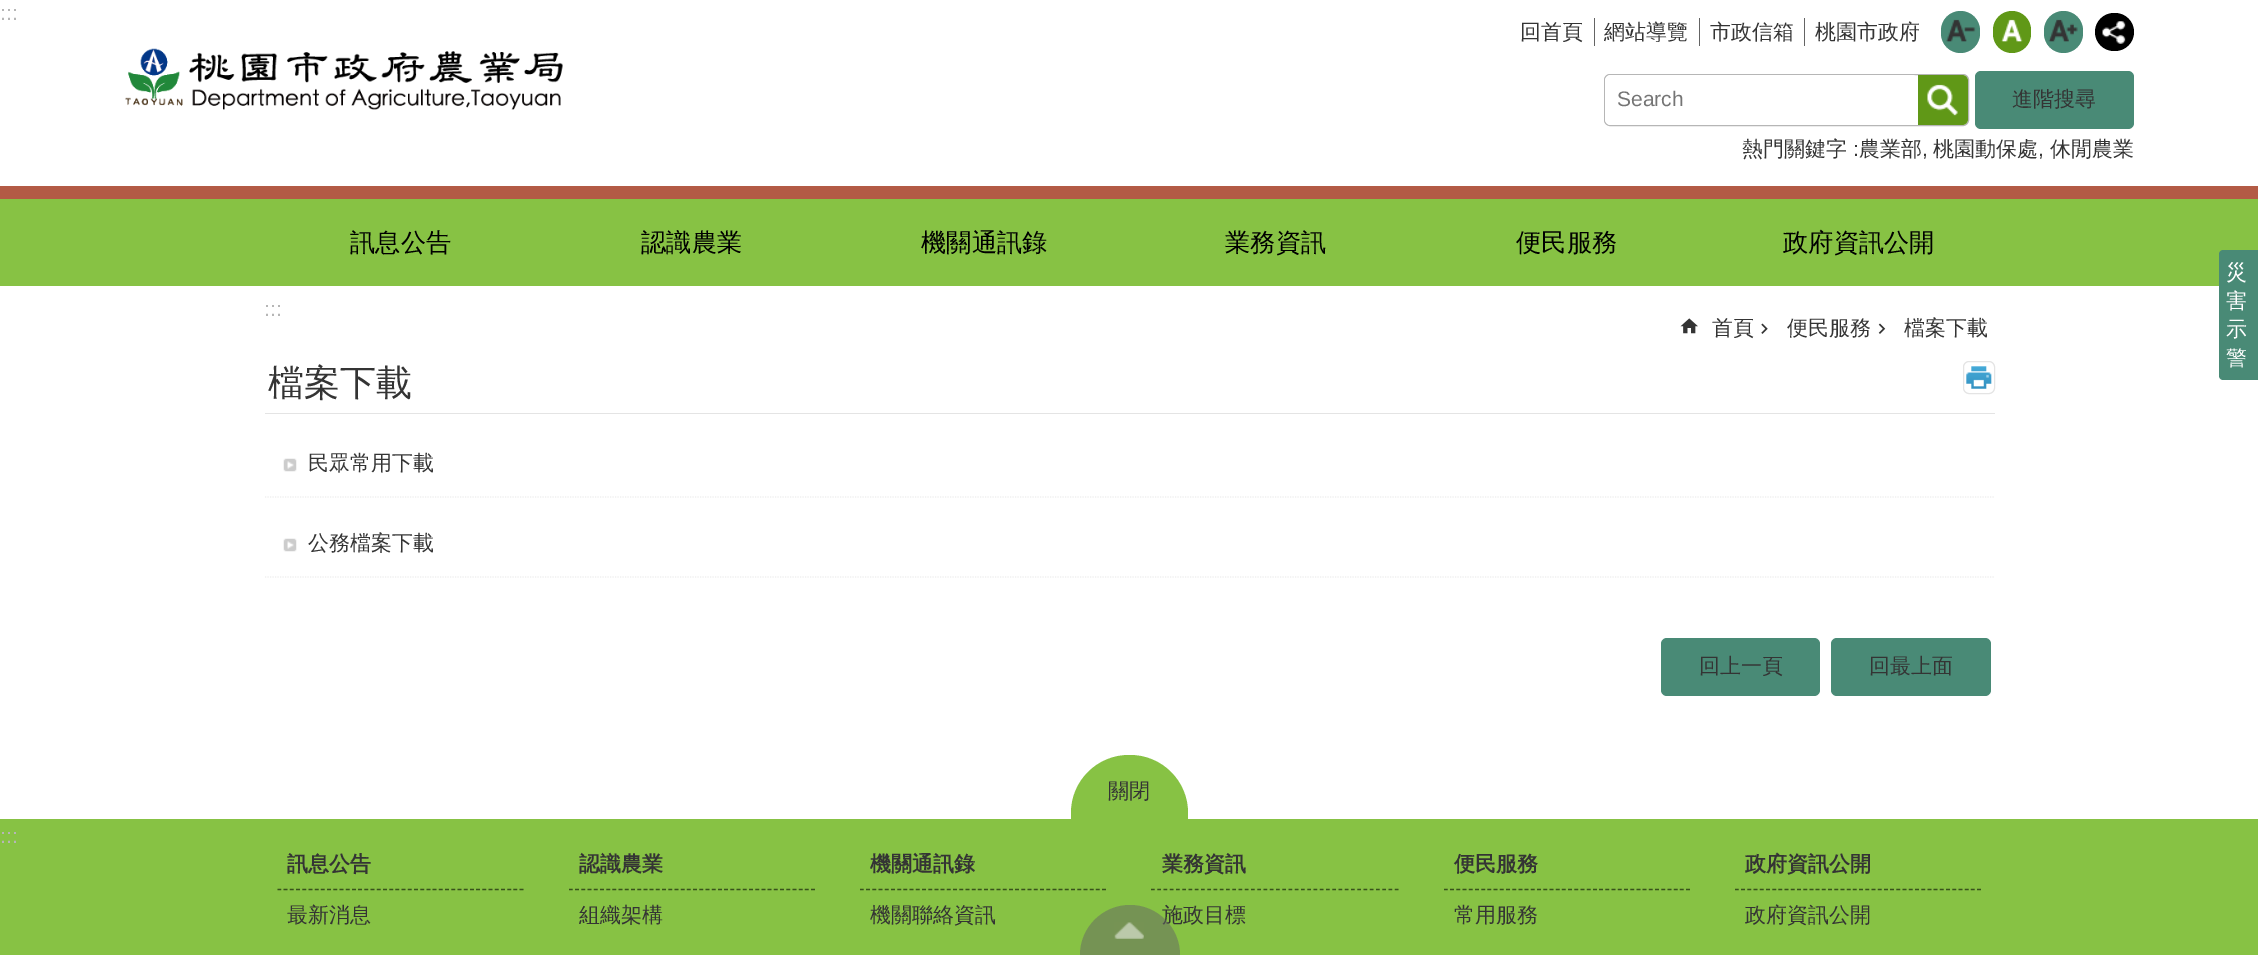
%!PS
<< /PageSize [2258 955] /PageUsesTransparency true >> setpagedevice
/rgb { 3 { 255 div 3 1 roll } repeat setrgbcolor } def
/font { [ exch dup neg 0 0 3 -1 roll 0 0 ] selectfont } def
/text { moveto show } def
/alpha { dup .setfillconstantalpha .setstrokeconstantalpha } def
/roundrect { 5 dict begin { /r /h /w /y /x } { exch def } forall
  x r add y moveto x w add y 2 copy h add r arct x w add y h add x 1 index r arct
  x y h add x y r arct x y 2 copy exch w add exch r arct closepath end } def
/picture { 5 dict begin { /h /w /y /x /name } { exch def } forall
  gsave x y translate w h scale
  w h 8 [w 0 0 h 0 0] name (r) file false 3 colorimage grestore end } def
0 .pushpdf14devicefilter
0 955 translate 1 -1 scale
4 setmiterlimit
255 255 255 rgb
0 0 2258 955 rectfill
(img_01.rgb) 125 48 438 62 picture
100 100 100 rgb
1594 18 1 28 rectfill
1699 18 1 28 rectfill
1804 18 1 28 rectfill
73 138 118 rgb
1941 11 39 42 19.5 roundrect fill
(img_02.rgb) 1946 19 30 23 picture
96 152 23 rgb
1993 11 38 42 19 roundrect fill
(img_03.rgb) 2001 19 22 23 picture
73 138 118 rgb
2044 11 39 42 19.5 roundrect fill
(img_04.rgb) 2048 19 30 23 picture
0 0 0 rgb
2095 13 39 38 19 roundrect fill
(img_05.rgb) 2102 21 24 23 picture
182 182 182 rgb
1604.5 74.5 364 51 5.5 roundrect stroke
255 255 255 rgb
1605 75 313 50 6 roundrect fill
96 152 23 rgb
1918 75 moveto 44 0 rlineto 3.5 0 6 2.5 6 6 rcurveto 0 38 rlineto 0 3.5 -2.5 6 -6 6 rcurveto -44 0 rlineto closepath fill
(img_06.rgb) 1927 84 31 32 picture
73 138 118 rgb
1975 71 159 58 6 roundrect fill
179 91 69 rgb
0 186 2258 13 rectfill
135 194 68 rgb
0 199 2258 87 rectfill
73 138 118 rgb
2223 250 moveto 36 0 rlineto 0 130 rlineto -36 0 rlineto -2 0 -4 -2 -4 -4 rcurveto 0 -122 rlineto 0 -2 2 -4 4 -4 rcurveto closepath fill
(img_07.rgb) 1680 318 18 16 picture
(img_08.rgb) 1761 323 7 11 picture
(img_09.rgb) 1878 323 8 11 picture
228 228 228 rgb
265 413 1730 1 rectfill
(img_10.rgb) 1966 366 26 23 picture
1963.5 361.5 31 32 5.5 roundrect stroke
238 238 238 rgb
1.2 setlinewidth
[1.25 1.25] 0 setdash
265 497 moveto 1730 0 rlineto stroke
(img_11.rgb) 283 458 14 14 picture
265 577 moveto 1730 0 rlineto stroke
(img_11.rgb) 283 538 14 14 picture
73 138 118 rgb
1661 638 159 58 6 roundrect fill
1831 638 160 58 6 roundrect fill
135 194 68 rgb
0 819 2258 136 rectfill
1129 755 moveto 1 0 rlineto 32 0 58 26 58 58 rcurveto 0 6 rlineto -117 0 rlineto 0 -6 rlineto 0 -32 26 -58 58 -58 rcurveto closepath fill
56 82 27 rgb
[3.75 2.46] 0 setdash
277.5 889.5 moveto 246.5 0 rlineto stroke
569 889.5 moveto 246 0 rlineto stroke
860 889.5 moveto 246 0 rlineto stroke
[3.75 2.5] 0 setdash
1151 889.5 moveto 248 0 rlineto stroke
[3.75 2.46] 0 setdash
1444 889.5 moveto 246 0 rlineto stroke
1735 889.5 moveto 246 0 rlineto stroke
/LiberationSans-Regular 21 font
182 182 182 rgb
(:::) 0 20 text
/WenQuanYiZenHei-Medium 21 font
52 52 52 rgb
(回首頁) 1520 39 text
(網站導覽) 1604 39 text
(市政信箱) 1710 39 text
(桃園市政府) 1815 39 text
/LiberationSans-Regular 21 font
117 117 117 rgb
(Search) 1617 106 text
/WenQuanYiZenHei-Medium 21 font
52 52 52 rgb
(進階搜尋) 2012 106 text
(熱門關鍵字) 1742 156 text
/LiberationSans-Regular 21 font
(:) 1853 156 text
/WenQuanYiZenHei-Medium 21 font
(農業部) 1859 156 text
/LiberationSans-Regular 21 font
(,) 1922 156 text
/WenQuanYiZenHei-Medium 21 font
(桃園動保處) 1933 156 text
/LiberationSans-Regular 21 font
(,) 2038 156 text
/WenQuanYiZenHei-Medium 21 font
(休閒農業) 2050 156 text
/WenQuanYiZenHei-Medium 25.25 font
0 0 0 rgb
(訊息公告) 350 251 text
(認識農業) 641 251 text
(機關通訊錄) 921 251 text
(業務資訊) 1225 251 text
(便民服務) 1516 251 text
(政府資訊公開) 1783 251 text
/WenQuanYiZenHei-Medium 21 font
255 255 255 rgb
(災) 2226 279 text
(害) 2226 308 text
(示) 2226 336 text
(警) 2226 365 text
/LiberationSans-Regular 21 font
182 182 182 rgb
(:::) 264 316 text
/WenQuanYiZenHei-Medium 21 font
52 52 52 rgb
(首頁) 1712 335 text
(便民服務) 1787 335 text
(檔案下載) 1904 335 text
/WenQuanYiZenHei-Medium 36 font
(檔案下載) 268 395 text
/WenQuanYiZenHei-Medium 21 font
(民眾常用下載) 308 470 text
(公務檔案下載) 308 550 text
(回上一頁) 1699 673 text
(回最上面) 1869 673 text
(關閉) 1108 798 text
/LiberationSans-Regular 21 font
182 182 182 rgb
(:::) 0 843 text
/WenQuanYiZenHei-Bold 21 font
52 52 52 rgb
(訊息公告) 287 871 text
/WenQuanYiZenHei-Medium 21 font
(最新消息) 287 922 text
/WenQuanYiZenHei-Bold 21 font
(認識農業) 579 871 text
/WenQuanYiZenHei-Medium 21 font
(組織架構) 579 922 text
/WenQuanYiZenHei-Bold 21 font
(機關通訊錄) 870 871 text
/WenQuanYiZenHei-Medium 21 font
(機關聯絡資訊) 870 922 text
/WenQuanYiZenHei-Bold 21 font
(業務資訊) 1162 871 text
/WenQuanYiZenHei-Medium 21 font
(施政目標) 1162 922 text
/WenQuanYiZenHei-Bold 21 font
(便民服務) 1454 871 text
/WenQuanYiZenHei-Medium 21 font
(常用服務) 1454 922 text
/WenQuanYiZenHei-Bold 21 font
(政府資訊公開) 1745 871 text
/WenQuanYiZenHei-Medium 21 font
(政府資訊公開) 1745 922 text
0.5 alpha
100 100 100 rgb
1130 905 moveto 27.5 0 50 22.5 50 50 rcurveto -100 0 rlineto 0 -27.5 22.5 -50 50 -50 rcurveto closepath fill
1 alpha
(img_12.rgb) 1114 922 30 17 picture
.poppdf14devicefilter showpage
